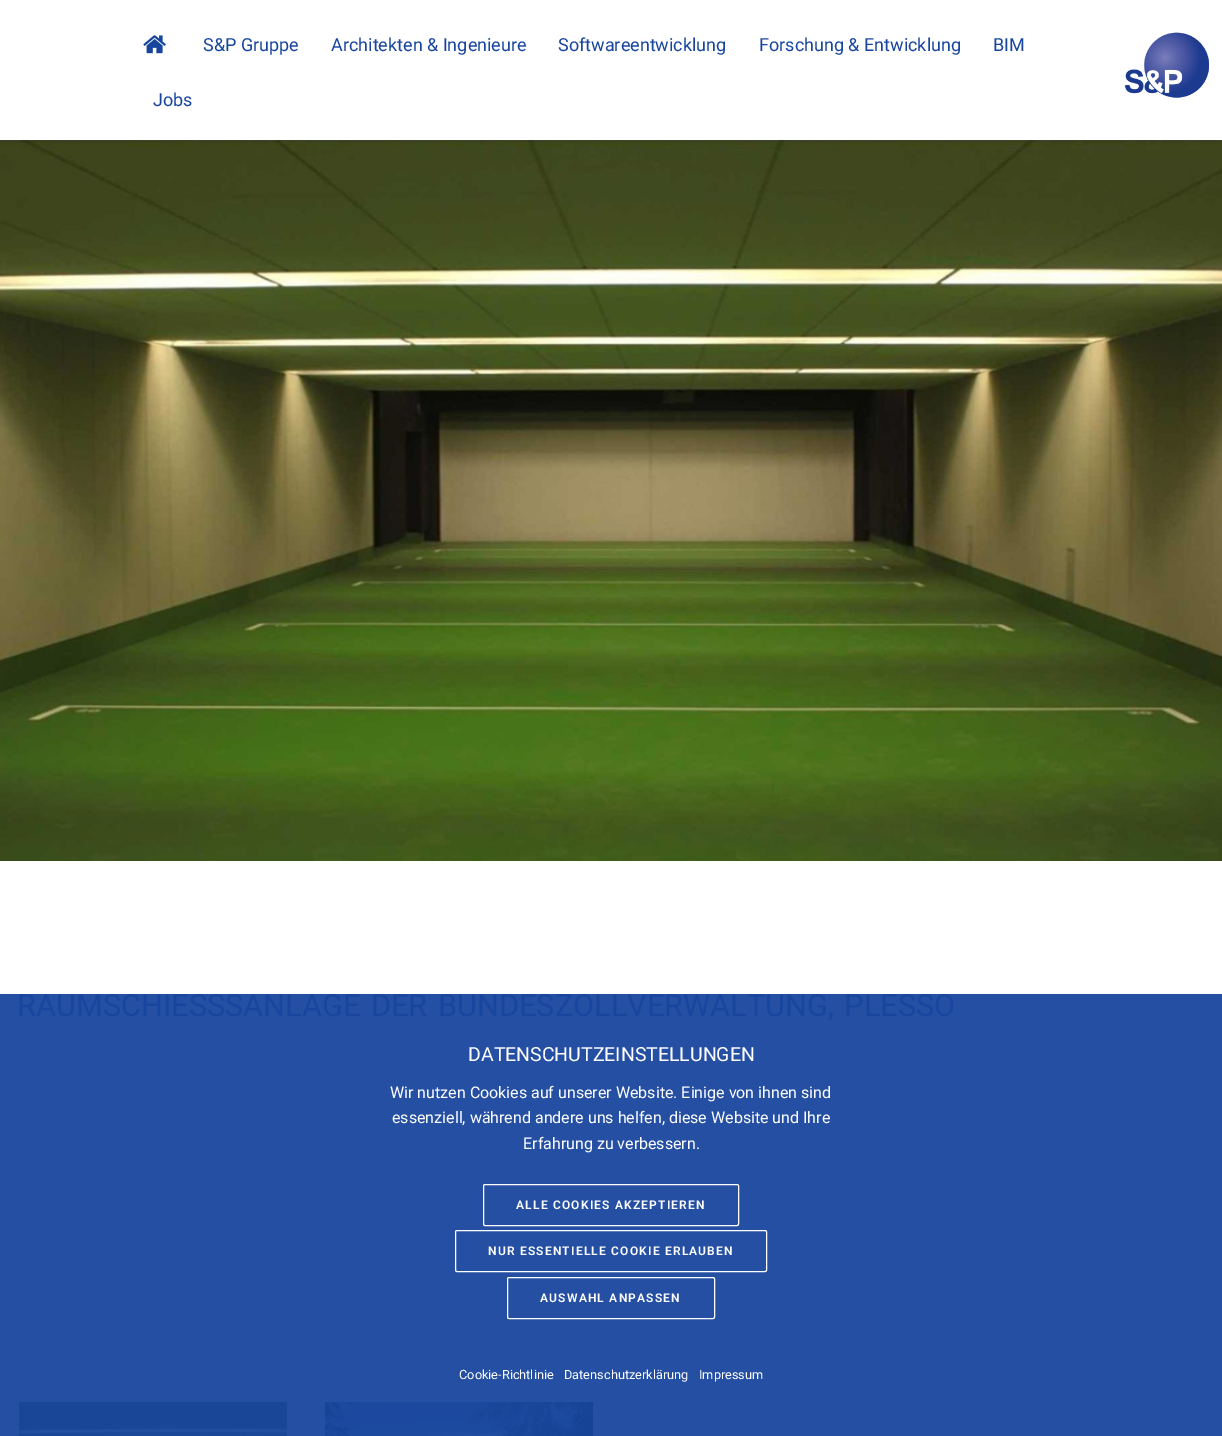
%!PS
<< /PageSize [1222 1436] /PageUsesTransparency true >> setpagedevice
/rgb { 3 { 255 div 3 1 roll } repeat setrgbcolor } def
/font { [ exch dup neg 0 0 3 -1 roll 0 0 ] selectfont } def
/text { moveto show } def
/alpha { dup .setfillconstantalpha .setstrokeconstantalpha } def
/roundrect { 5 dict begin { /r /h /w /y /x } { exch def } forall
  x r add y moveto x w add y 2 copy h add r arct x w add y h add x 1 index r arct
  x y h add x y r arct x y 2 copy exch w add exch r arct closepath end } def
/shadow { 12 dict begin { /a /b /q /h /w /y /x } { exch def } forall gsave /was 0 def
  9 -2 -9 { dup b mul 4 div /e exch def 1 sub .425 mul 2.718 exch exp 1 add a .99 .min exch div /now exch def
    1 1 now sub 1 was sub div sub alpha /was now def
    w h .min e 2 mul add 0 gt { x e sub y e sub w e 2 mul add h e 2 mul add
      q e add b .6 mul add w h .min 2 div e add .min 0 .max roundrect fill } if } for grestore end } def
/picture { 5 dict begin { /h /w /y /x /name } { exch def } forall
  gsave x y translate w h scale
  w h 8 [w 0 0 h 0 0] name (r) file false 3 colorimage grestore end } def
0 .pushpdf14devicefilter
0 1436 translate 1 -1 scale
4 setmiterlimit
255 255 255 rgb
0 0 1222 1436 rectfill
36 79 163 rgb
0 994 1222 442 rectfill
(img_03.rgb) 0 140 1222 721 picture
0 0 0 rgb
9 14 1204 120 0 5 0.6 shadow
255 255 255 rgb
0 3 1222 137 rectfill
(img_01.rgb) 143 35 23 19 picture
(img_02.rgb) 1125 32 84 66 picture
(img_04.rgb) 19 1402 268 34 picture
(img_05.rgb) 325 1402 268 34 picture
483.5 1184.5 255 41 1.5 roundrect stroke
455.5 1230.5 311 41 1.5 roundrect stroke
507.5 1277.5 207 41 1.5 roundrect stroke
/Roboto-Regular 18 font
24 69 158 rgb
(S&P Gruppe) 203 51 text
(Architekten & Ingenieure) 331 51 text
(Softwareentwicklung) 558 51 text
(Forschung & Entwicklung) 759 51 text
(BIM) 993 51 text
(Jobs) 153 106 text
/Roboto-Regular 30.7 font
(RAUMSCHIESS) 17 1016 text
225 1016 moveto 3 0 32 (SANLAGE DER BUNDESZOLLVERWALTUNG, PLESSO) widthshow
/Roboto-Regular 19.5 font
255 255 255 rgb
(DATENSCHUTZEINSTELLUNGEN) 468 1061 text
/Roboto-Regular 16 font
(Wir nutzen Cookies auf unserer Website. Einige von ihnen sind) 390 1098 text
(essenziell, während andere uns helfen, diese Website und Ihre) 392 1123 text
(Erfahrung zu verbessern.) 523 1149 text
/Roboto-SemiBold 12 font
516 1209 moveto 1.2 0 (ALLE COOKIES AKZEPTIEREN) ashow
488 1255 moveto 1.2 0 (NUR ESSENTIELLE COOKIE ERLAUBEN) ashow
540 1302 moveto 1.2 0 (AUSWAHL ANPASSEN) ashow
/Roboto-Regular 12.75 font
(Cookie-Richtlinie) 459 1379 text
(Datenschutzerklärung) 564 1379 text
(Impressum) 699 1379 text
.poppdf14devicefilter showpage
